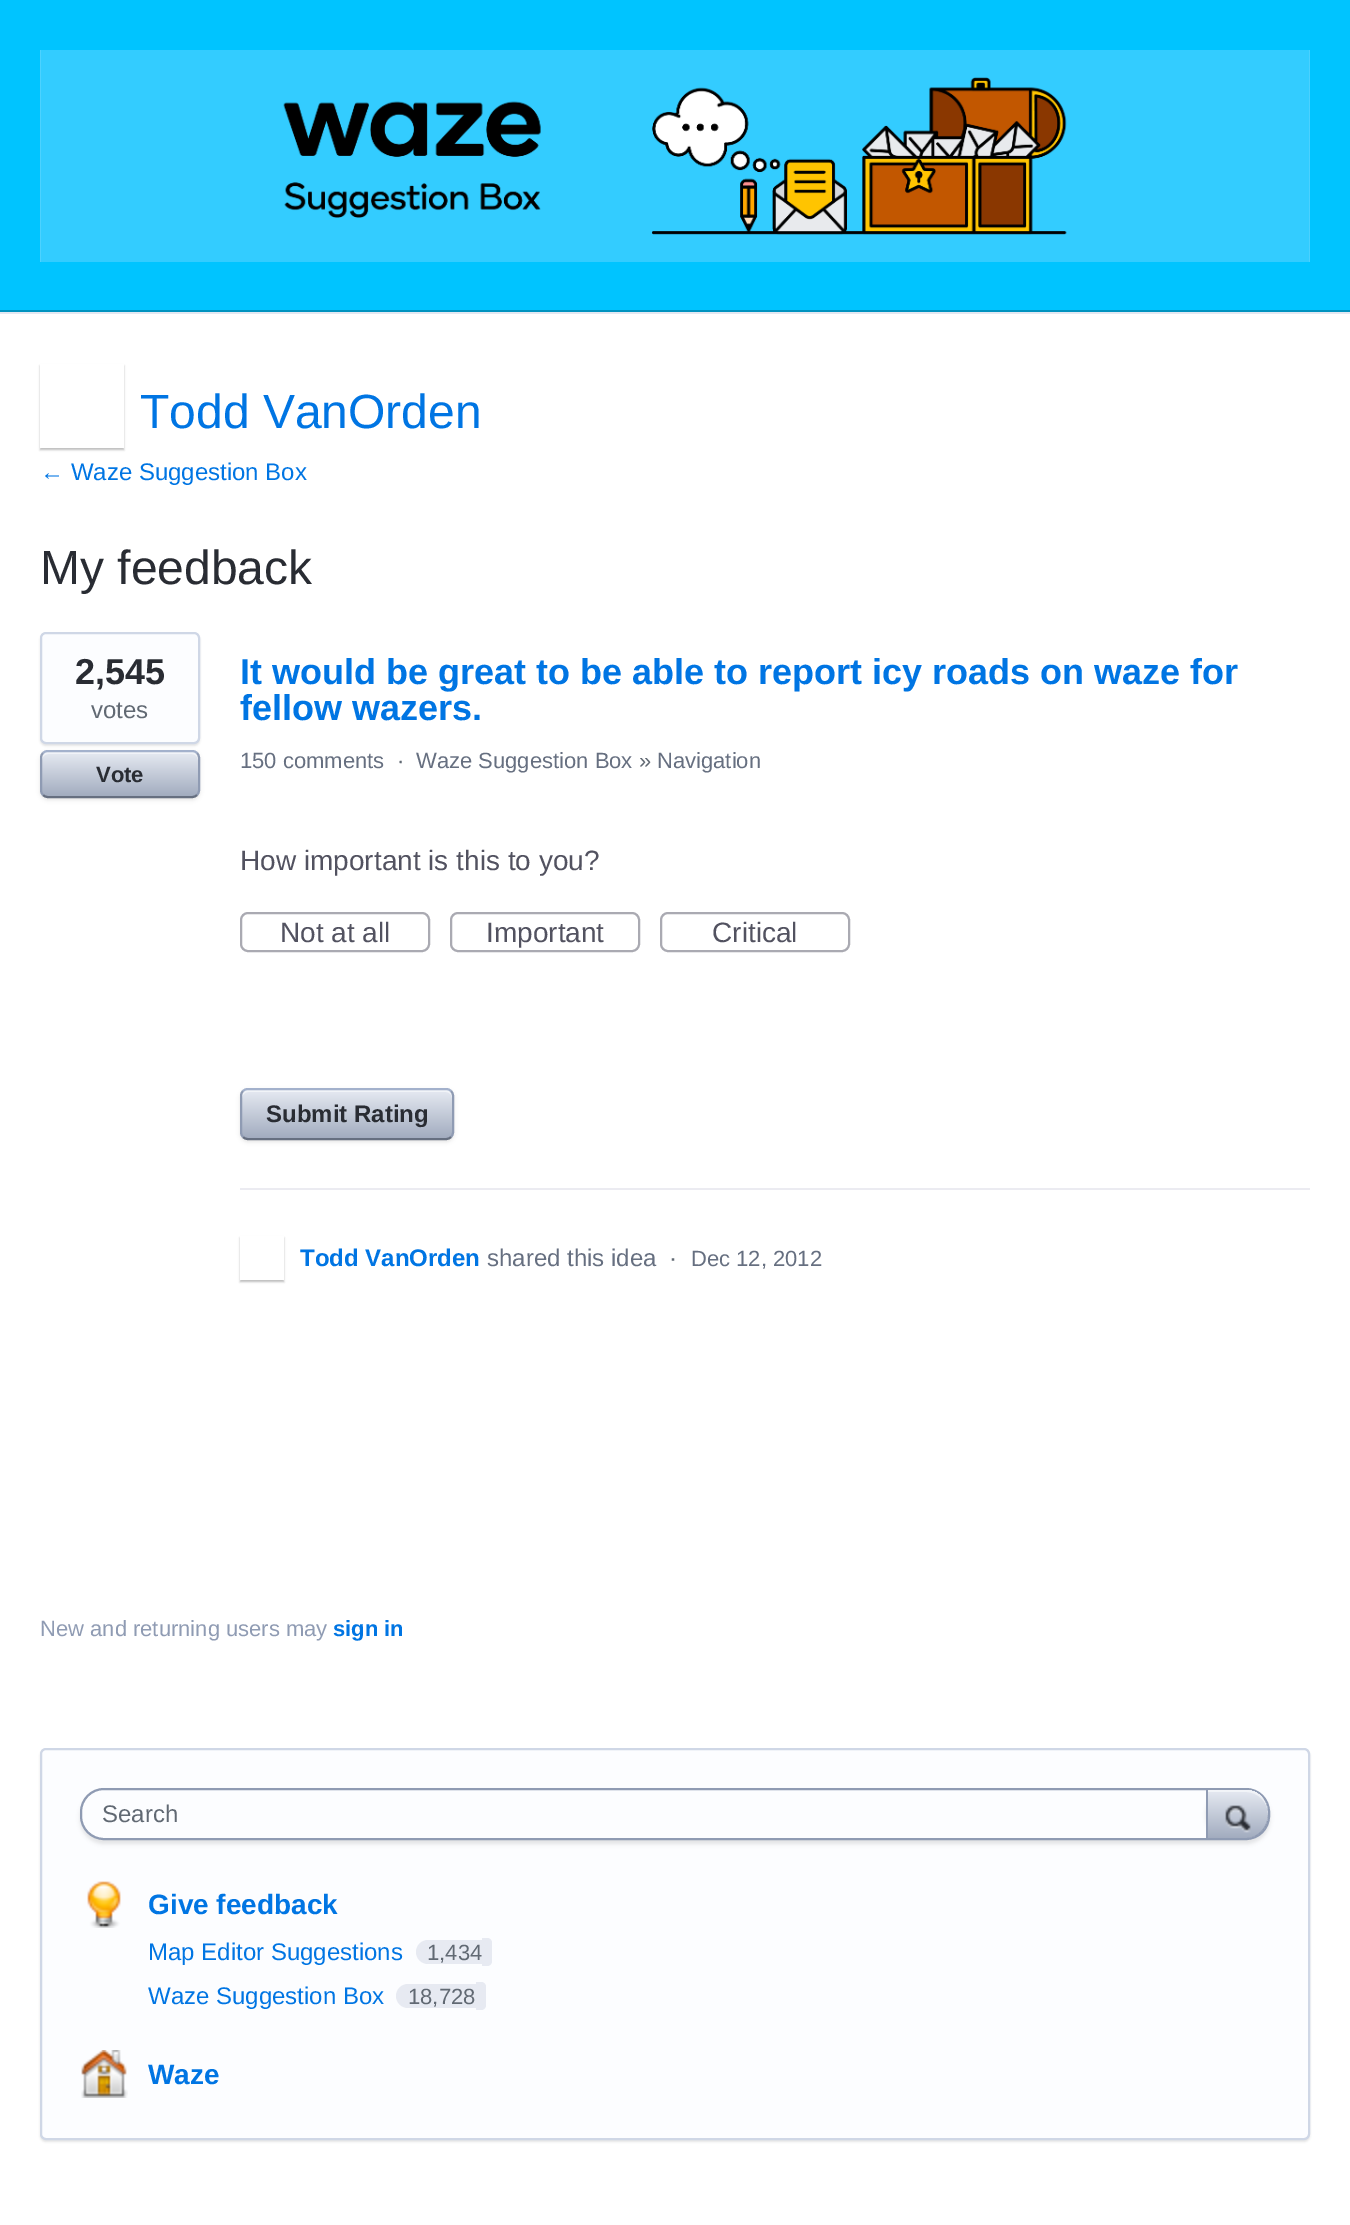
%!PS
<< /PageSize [1350 2225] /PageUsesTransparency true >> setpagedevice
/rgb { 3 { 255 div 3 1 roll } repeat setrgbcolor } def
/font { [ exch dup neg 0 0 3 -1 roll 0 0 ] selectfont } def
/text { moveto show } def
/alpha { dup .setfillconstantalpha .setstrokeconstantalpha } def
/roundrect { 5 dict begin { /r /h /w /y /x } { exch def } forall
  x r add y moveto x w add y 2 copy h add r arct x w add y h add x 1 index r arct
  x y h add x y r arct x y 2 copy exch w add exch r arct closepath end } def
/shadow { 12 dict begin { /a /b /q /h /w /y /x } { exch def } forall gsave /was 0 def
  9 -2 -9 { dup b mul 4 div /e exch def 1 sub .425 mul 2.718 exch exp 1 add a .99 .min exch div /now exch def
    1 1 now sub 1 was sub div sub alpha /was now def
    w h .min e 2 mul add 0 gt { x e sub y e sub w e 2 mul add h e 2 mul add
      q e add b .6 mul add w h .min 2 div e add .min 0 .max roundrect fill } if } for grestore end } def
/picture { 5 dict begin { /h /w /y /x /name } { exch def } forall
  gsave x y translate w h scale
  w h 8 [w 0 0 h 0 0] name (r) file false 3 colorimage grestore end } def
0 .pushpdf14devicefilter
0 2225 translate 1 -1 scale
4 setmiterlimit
255 255 255 rgb
0 0 1350 2225 rectfill
0 196 255 rgb
0 0 1350 310 rectfill
0 147 191 rgb
0 310 1350 2 rectfill
(img_01.rgb) 40 50 1270 212 picture
227 232 242 rgb
0 312 1350 2 rectfill
gsave
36 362 moveto 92 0 rlineto 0 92 rlineto -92 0 rlineto closepath 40 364 moveto 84 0 rlineto 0 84 rlineto -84 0 rlineto closepath eoclip newpath
0 0 0 rgb
40 366 84 84 0 1 0.25 shadow
grestore
0 0 0 rgb
40 634 160 112 6 1 0.1 shadow
252 253 255 rgb
41 633 158 110 5 roundrect gsave fill grestore
207 215 230 rgb
2 setlinewidth
stroke
0 0 0 rgb
40 752 160 48 8 2 0.1 shadow
gsave 42 752 156 44 6 roundrect clip newpath
<< /ShadingType 2 /ColorSpace /DeviceRGB /Coords [42 752 42 796] /Extend [true true] /Function << /FunctionType 2 /Domain [0 1] /C0 [0.902 0.918 0.949] /C1 [0.635 0.675 0.749] /N 1 >> >> shfill grestore
0.5 alpha
255 255 255 rgb
48 754 moveto 144 0 rlineto 3 0 6 3 6 6 rcurveto 0 -2 rlineto 0 -3 -3 -6 -6 -6 rcurveto -144 0 rlineto -3 0 -6 3 -6 6 rcurveto 0 2 rlineto 0 -3 3 -6 6 -6 rcurveto closepath fill
1 alpha
163 177 204 rgb
43 753 moveto 1.5 -1.5 3 -2 5 -2 rcurveto 144 0 rlineto 2 0 3.5 0.5 5 2 rcurveto stroke
143 155 179 rgb
197 753 moveto 1.5 1.5 2 3 2 5 rcurveto 0 32 rlineto 0 2 -0.5 3.5 -2 5 rcurveto stroke
102 111 128 rgb
197 795 moveto -1.5 1.5 -3 2 -5 2 rcurveto -144 0 rlineto -2 0 -3.5 -0.5 -5 -2 rcurveto stroke
143 155 179 rgb
43 795 moveto -1.5 -1.5 -2 -3 -2 -5 rcurveto 0 -32 rlineto 0 -2 0.5 -3.5 2 -5 rcurveto stroke
235 235 241 rgb
240 1188 1070 2 rectfill
170 170 178 rgb
241 913 188 38 7 roundrect stroke
451 913 188 38 7 roundrect stroke
661 913 188 38 7 roundrect stroke
0 0 0 rgb
240 1090 214 52 8 2 0.1 shadow
gsave 242 1090 210 48 6 roundrect clip newpath
<< /ShadingType 2 /ColorSpace /DeviceRGB /Coords [242 1090 242 1138] /Extend [true true] /Function << /FunctionType 2 /Domain [0 1] /C0 [0.902 0.918 0.949] /C1 [0.635 0.675 0.749] /N 1 >> >> shfill grestore
0.5 alpha
255 255 255 rgb
248 1092 moveto 198 0 rlineto 3 0 6 3 6 6 rcurveto 0 -2 rlineto 0 -3 -3 -6 -6 -6 rcurveto -198 0 rlineto -3 0 -6 3 -6 6 rcurveto 0 2 rlineto 0 -3 3 -6 6 -6 rcurveto closepath fill
1 alpha
163 177 204 rgb
243 1091 moveto 1.5 -1.5 3 -2 5 -2 rcurveto 198 0 rlineto 2 0 3.5 0.5 5 2 rcurveto stroke
143 155 179 rgb
451 1091 moveto 1.5 1.5 2 3 2 5 rcurveto 0 36 rlineto 0 2 -0.5 3.5 -2 5 rcurveto stroke
102 111 128 rgb
451 1137 moveto -1.5 1.5 -3 2 -5 2 rcurveto -198 0 rlineto -2 0 -3.5 -0.5 -5 -2 rcurveto stroke
143 155 179 rgb
243 1137 moveto -1.5 -1.5 -2 -3 -2 -5 rcurveto 0 -36 rlineto 0 -2 0.5 -3.5 2 -5 rcurveto stroke
gsave
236 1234 moveto 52 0 rlineto 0 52 rlineto -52 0 rlineto closepath 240 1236 moveto 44 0 rlineto 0 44 rlineto -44 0 rlineto closepath eoclip newpath
0 0 0 rgb
240 1238 44 44 0 1 0.25 shadow
grestore
0 0 0 rgb
40 1750 1270 392 6 1 0.1 shadow
252 253 255 rgb
41 1749 1268 390 5 roundrect gsave fill grestore
207 215 230 rgb
stroke
0 0 0 rgb
80 1792 1190 52 24 2 0.1 shadow
252 253 255 rgb
81 1789 1188 50 23 roundrect gsave fill grestore
143 155 179 rgb
stroke
gsave
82 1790 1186 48 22 roundrect clip newpath
0 0 0 rgb
1206 1790 64 50 24 2 0.1 shadow
grestore
gsave 1208 1790 moveto 38 0 rlineto 12 0 22 10 22 22 rcurveto 0 2 rlineto 0 13 -10 24 -22 24 rcurveto -38 0 rlineto closepath clip newpath
<< /ShadingType 2 /ColorSpace /DeviceRGB /Coords [1208 1790 1208 1838] /Extend [true true] /Function << /FunctionType 2 /Domain [0 1] /C0 [0.902 0.918 0.949] /C1 [0.635 0.675 0.749] /N 1 >> >> shfill grestore
0.5 alpha
255 255 255 rgb
1208 1790 moveto 0 2 rlineto 38 0 rlineto 12 0 22 10 22 22 rcurveto 0 -13 -8 -24 -22 -24 rcurveto closepath fill
1 alpha
143 155 179 rgb
1268 1814 moveto 0 13 -8 24 -22 24 rcurveto 12 0 22 -11 22 -24 rcurveto closepath 1262 1796 moveto 3 4 6 10 6 16 rcurveto 0 -6 -2 -12 -6 -16 rcurveto closepath eofill
1206 1790 2 48 rectfill
(img_02.rgb) 1225 1805 26 28 picture
(img_03.rgb) 87 1881 34 47 picture
231 234 242 rgb
428 1940 moveto 54 0 rlineto 0 24 rlineto -54 0 rlineto -6.5 0 -12 -5.5 -12 -12 rcurveto 0 -6.5 5.5 -12 12 -12 rcurveto closepath fill
482 1938 moveto 5 0 rlineto 3 0 5 2 5 5 rcurveto 0 18 rlineto 0 3 -2 5 -5 5 rcurveto -5 0 rlineto closepath fill
408 1984 moveto 68 0 rlineto 0 24 rlineto -68 0 rlineto -6.5 0 -12 -5.5 -12 -12 rcurveto 0 -6.5 5.5 -12 12 -12 rcurveto closepath fill
476 1982 moveto 5 0 rlineto 3 0 5 2 5 5 rcurveto 0 18 rlineto 0 3 -2 5 -5 5 rcurveto -5 0 rlineto closepath fill
(img_04.rgb) 81 2050 47 48 picture
/LiberationSans-Regular 48 font
0 117 227 rgb
(Todd VanOrden) 140 428 text
/LiberationSans-Regular 24 font
(← Waze Suggestion Box) 40 480 text
/LiberationSans-Regular 48 font
41 44 51 rgb
(My feedback) 40 584 text
/LiberationSans-Bold 36 font
(2,545) 75 684 text
/LiberationSans-Regular 24 font
97 105 115 rgb
(votes) 91 718 text
/LiberationSans-Bold 22 font
41 44 51 rgb
(Vote) 96 782 text
/LiberationSans-Bold 36 font
0 117 227 rgb
(It would be great to be able to report icy roads on waze for) 240 684 text
(fellow wazers.) 240 720 text
/LiberationSans-Regular 22 font
102 111 128 rgb
(150 comments) 240 768 text
97 105 115 rgb
(·) 397 768 text
102 111 128 rgb
(Waze Suggestion Box) 416 768 text
97 105 115 rgb
(») 639 768 text
102 111 128 rgb
(Navigation) 657 768 text
/LiberationSans-Regular 28 font
82 82 96 rgb
(How important is this to you?) 240 870 text
(Not at all) 280 942 text
(Important) 486 942 text
(Critical) 712 942 text
/LiberationSans-Bold 24 font
41 44 51 rgb
(Submit Rating) 266 1122 text
0 117 227 rgb
(Todd VanOrden) 300 1266 text
/LiberationSans-Regular 24 font
102 111 128 rgb
(shared this idea) 487 1266 text
97 105 115 rgb
(·) 669 1266 text
/LiberationSans-Regular 22 font
102 111 128 rgb
(Dec 12, 2012) 691 1266 text
143 155 179 rgb
(New and returning users may) 40 1636 text
/LiberationSans-Bold 22 font
0 117 227 rgb
(sign in) 333 1636 text
/LiberationSans-Regular 24 font
97 105 115 rgb
(Search) 102 1822 text
/LiberationSans-Bold 28 font
0 117 227 rgb
(Give feedback) 148 1914 text
/LiberationSans-Regular 24 font
(Map Editor Suggestions) 148 1960 text
/LiberationSans-Regular 22 font
97 105 115 rgb
(1,434) 427 1960 text
/LiberationSans-Regular 24 font
0 117 227 rgb
(Waze Suggestion Box) 148 2004 text
/LiberationSans-Regular 22 font
97 105 115 rgb
(18,728) 408 2004 text
/LiberationSans-Bold 28 font
0 117 227 rgb
(Waze) 148 2084 text
.poppdf14devicefilter showpage
